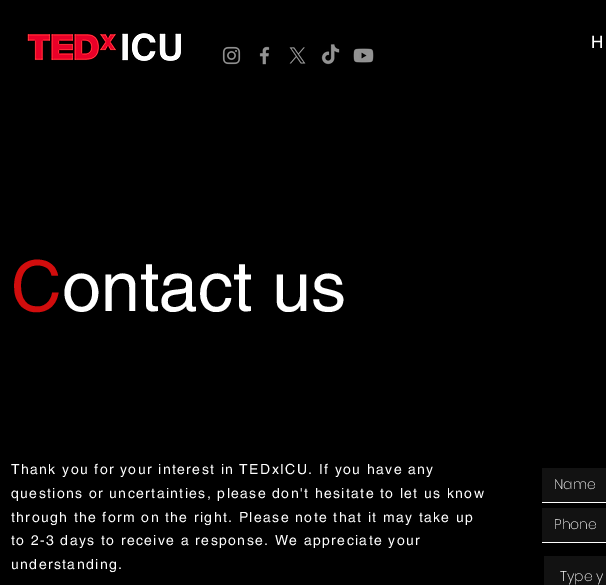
%!PS
<< /PageSize [606 585] >> setpagedevice
/rgb { 3 { 255 div 3 1 roll } repeat setrgbcolor } def
/font { [ exch dup neg 0 0 3 -1 roll 0 0 ] selectfont } def
/text { moveto show } def
/picture { 5 dict begin { /h /w /y /x /name } { exch def } forall
  gsave x y translate w h scale
  w h 8 [w 0 0 h 0 0] name (r) file false 3 colorimage grestore end } def
0 585 translate 1 -1 scale
4 setmiterlimit
0 0 0 rgb
0 0 606 585 rectfill
(img_01.rgb) 27 33 154 28 picture
(img_02.rgb) 222 46 19 19 picture
(img_03.rgb) 259 46 11 19 picture
(img_04.rgb) 289 47 17 17 picture
(img_05.rgb) 321 44 19 21 picture
(img_06.rgb) 353 48 21 15 picture
18 18 18 rgb
542 468 64 34 rectfill
255 255 255 rgb
542 502 64 1 rectfill
18 18 18 rgb
542 508 64 34 rectfill
255 255 255 rgb
542 542 64 1 rectfill
18 18 18 rgb
544 556 62 29 rectfill
/helvetica-Regular 17 font
255 255 255 rgb
(H) 591 48 text
/helvetica-Regular 70 font
209 13 13 rgb
(C) 11 311 text
255 255 255 rgb
(ontact us) 62 311 text
/helvetica-Regular 14 font
11 474 moveto 1.4 0 (Thank you for your interest in TEDxICU. If you have any) ashow
11 498 moveto 1.4 0 (questions or uncertainties, please don't hesitate to let us know) ashow
11 522 moveto 1.4 0 (through the form on the right. Please note that it may take up) ashow
11 545 moveto 1.4 0 (to 2-3 days to receive a response. We appreciate your) ashow
11 569 moveto 1.4 0 (understanding.) ashow
/Poppins-ExtraLight 14 font
(Name) 554 489 text
(Phone) 554 529 text
(Type y) 560 581 text
showpage
